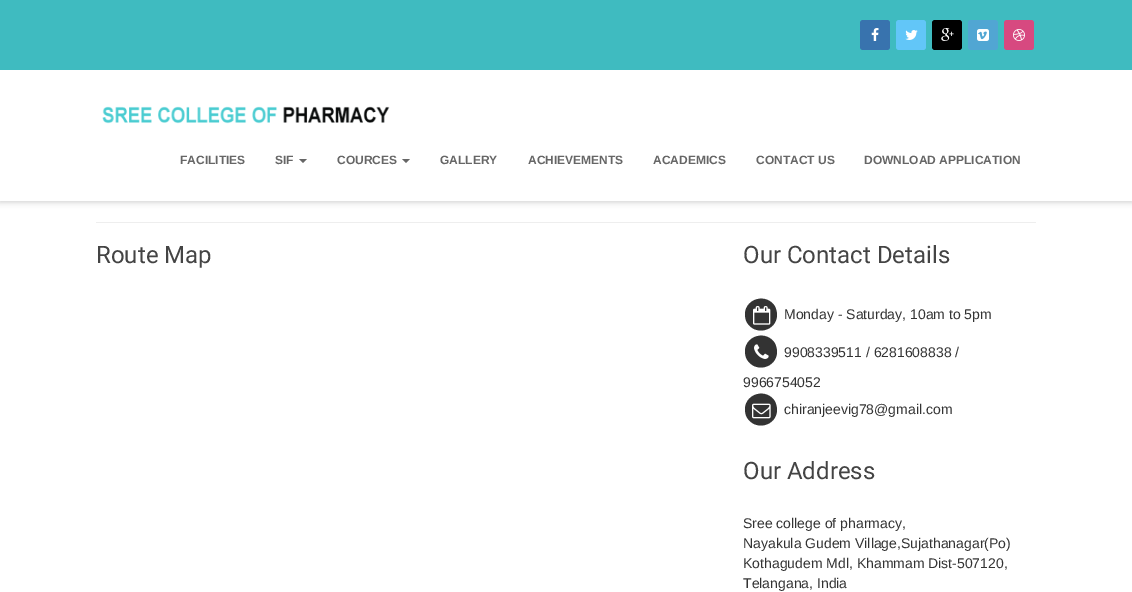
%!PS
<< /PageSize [1132 592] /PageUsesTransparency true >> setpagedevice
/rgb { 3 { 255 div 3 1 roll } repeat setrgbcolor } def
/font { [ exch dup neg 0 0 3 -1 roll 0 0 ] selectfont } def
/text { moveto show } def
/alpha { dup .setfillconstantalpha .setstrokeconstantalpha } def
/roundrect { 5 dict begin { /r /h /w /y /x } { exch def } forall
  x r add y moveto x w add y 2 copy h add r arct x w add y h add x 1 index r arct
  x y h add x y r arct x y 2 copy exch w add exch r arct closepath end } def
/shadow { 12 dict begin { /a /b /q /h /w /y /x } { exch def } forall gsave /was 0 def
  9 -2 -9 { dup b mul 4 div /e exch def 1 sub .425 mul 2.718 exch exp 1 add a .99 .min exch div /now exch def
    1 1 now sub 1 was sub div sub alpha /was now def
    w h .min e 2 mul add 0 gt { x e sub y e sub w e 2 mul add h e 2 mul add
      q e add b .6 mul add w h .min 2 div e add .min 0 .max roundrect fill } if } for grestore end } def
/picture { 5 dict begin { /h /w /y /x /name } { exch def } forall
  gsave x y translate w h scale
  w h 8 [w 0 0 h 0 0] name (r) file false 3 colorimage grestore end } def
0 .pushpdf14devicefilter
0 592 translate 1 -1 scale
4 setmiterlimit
255 255 255 rgb
0 0 1132 592 rectfill
0 0 0 rgb
0 1 1132 201 0 3 0.2 shadow
255 255 255 rgb
0 70 1132 131 rectfill
63 187 192 rgb
0 0 1132 70 rectfill
56 115 174 rgb
860 20 30 30 3 roundrect fill
(img_01.rgb) 871 28 8 13 picture
98 198 248 rgb
896 20 30 30 3 roundrect fill
(img_02.rgb) 905 30 13 10 picture
0 0 0 rgb
932 20 30 30 3 roundrect fill
(img_03.rgb) 941 28 13 13 picture
81 166 211 rgb
968 20 30 30 3 roundrect fill
(img_04.rgb) 977 29 12 12 picture
215 73 128 rgb
1004 20 30 30 3 roundrect fill
(img_05.rgb) 1013 29 12 12 picture
(img_06.rgb) 102 106 288 18 picture
102 102 102 rgb
299 159 moveto 8 0 rlineto -4 4 rlineto closepath fill
402 159 moveto 8 0 rlineto -4 4 rlineto closepath fill
238 238 238 rgb
96 222 940 1 rectfill
51 51 51 rgb
775 306.5 moveto 1.5 3 2 6 2 9 rcurveto -1 16 -22 20.5 -30 7 rcurveto -1.5 -2.5 -2 -5.5 -2 -9 rcurveto 1 -15.5 22 -20.5 30 -7 rcurveto closepath fill
(img_07.rgb) 753 306 18 19 picture
775 343.5 moveto 1.5 3 2 6 2 9 rcurveto -1 16 -22 20.5 -30 7 rcurveto -1.5 -2.5 -2 -5.5 -2 -9 rcurveto 1 -15.5 22 -20.5 30 -7 rcurveto closepath fill
(img_08.rgb) 754 344 15 15 picture
775 401.5 moveto 1.5 3 2 6 2 9 rcurveto -1 16 -22 20.5 -30 7 rcurveto -1.5 -2.5 -2 -5.5 -2 -9 rcurveto 1 -15.5 22 -20.5 30 -7 rcurveto closepath fill
(img_09.rgb) 752 403 19 16 picture
/LiberationSans-Bold 12 font
102 102 102 rgb
(FACILITIES) 180 164 text
(SIF) 275 164 text
(COURCES) 337 164 text
(GALLERY) 440 164 text
(ACHIEVEMENTS) 528 164 text
(ACADEMICS) 653 164 text
(CONTACT US) 756 164 text
(DOWNLOAD APPLICATION) 864 164 text
/Roboto-Regular 24 font
68 68 68 rgb
(Route Map) 96 263 text
(Our Contact Details) 743 263 text
/LiberationSans-Regular 14 font
51 51 51 rgb
(Monday - Saturday, 10am to 5pm) 784 319 text
(9908339511 / 6281608838 /) 784 357 text
(9966754052) 743 387 text
(chiranjeevig78@gmail.com) 784 414 text
/Roboto-Regular 24 font
68 68 68 rgb
(Our Address) 743 479 text
/LiberationSans-Regular 14 font
51 51 51 rgb
(Sree college of pharmacy,) 743 528 text
(Nayakula Gudem Village,Sujathanagar\(Po\)) 743 548 text
(Kothagudem Mdl, Khammam Dist-507120,) 743 568 text
(Telangana, India) 743 588 text
.poppdf14devicefilter showpage
